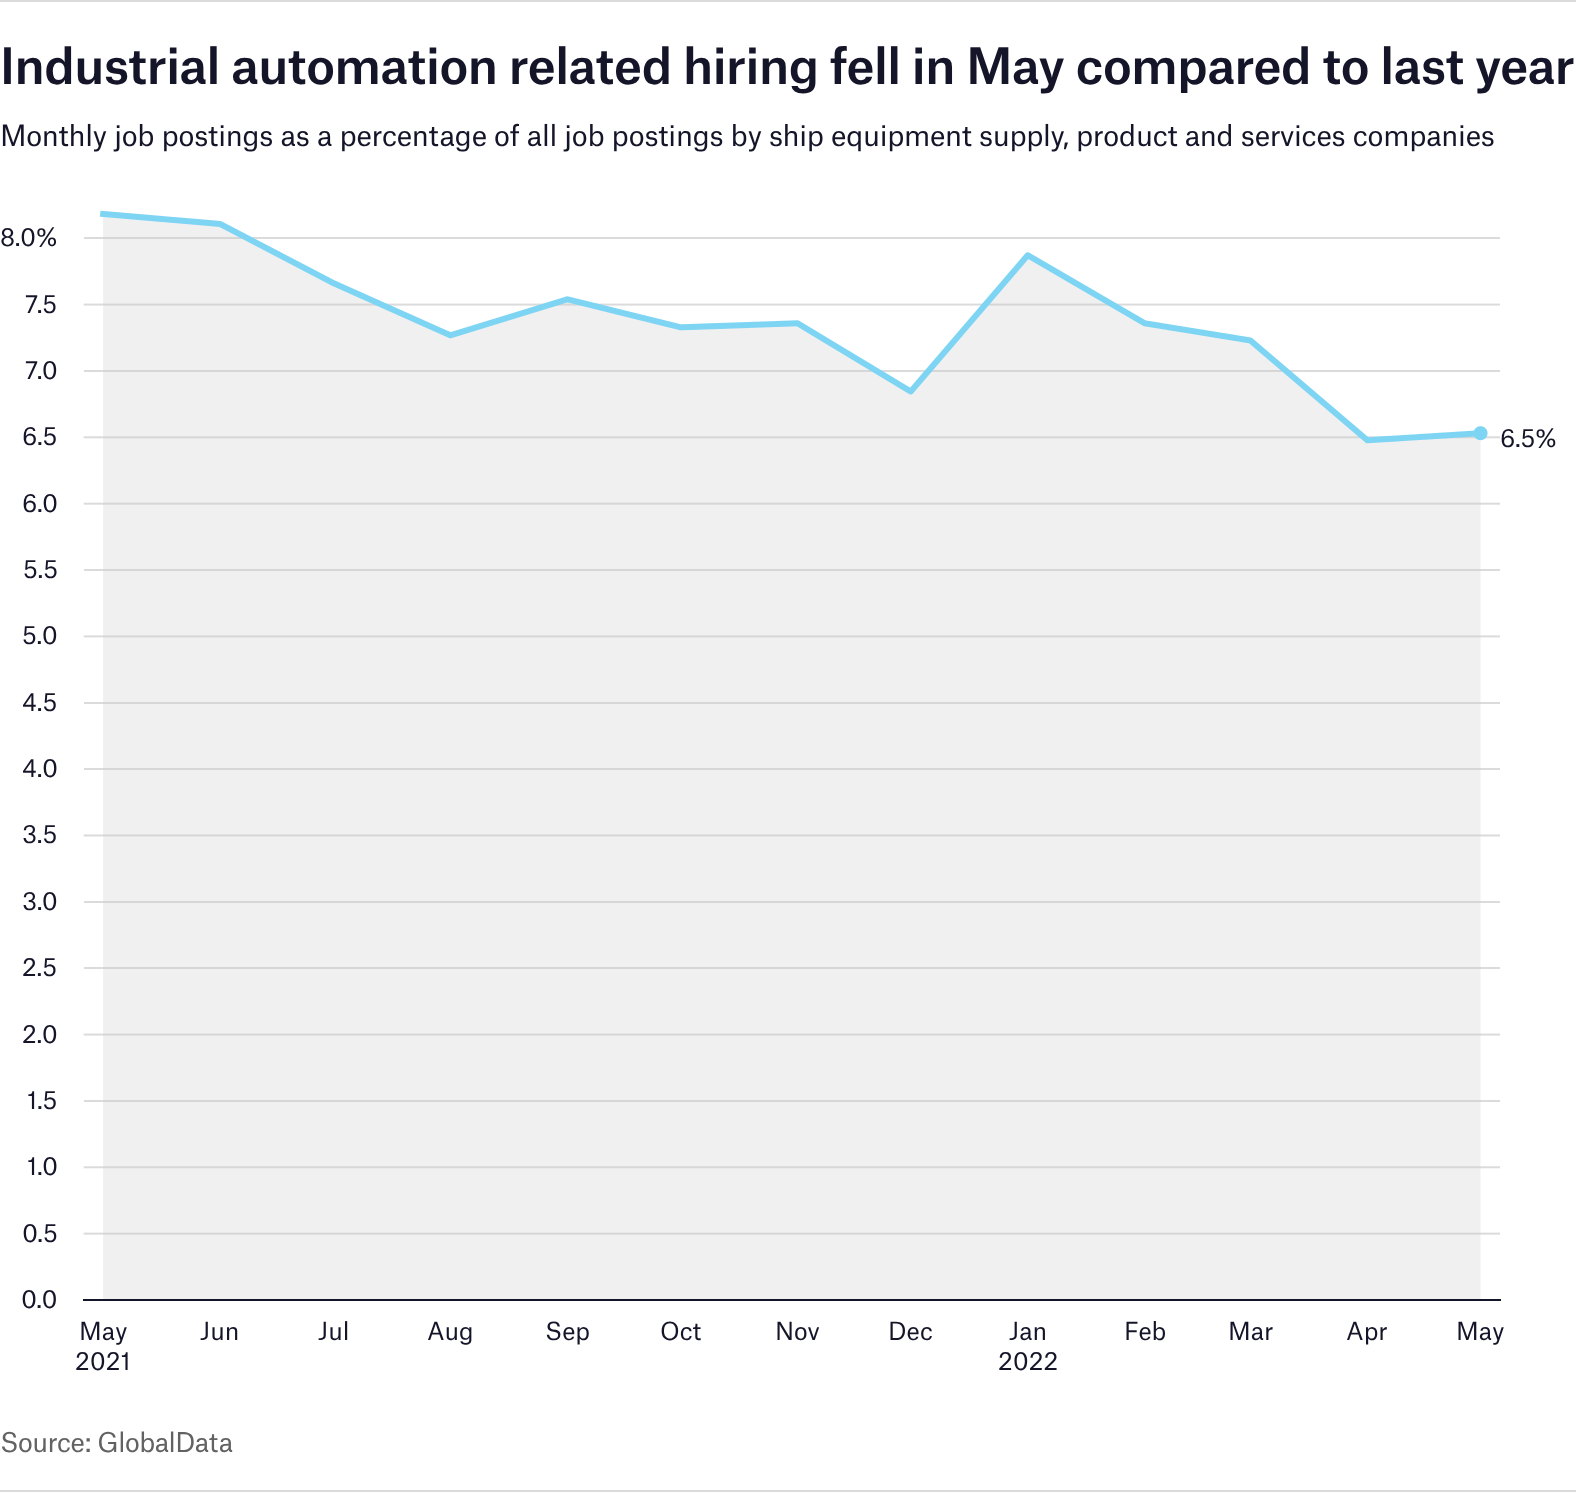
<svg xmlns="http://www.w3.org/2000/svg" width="1576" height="1492">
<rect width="100%" height="100%" fill="#fff"/>
<rect width="1576" height="2" fill="#dbdbdb"/>
<rect y="1490" width="1576" height="2" fill="#dbdbdb"/>
<text x="0" y="84" style="font-family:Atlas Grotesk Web;font-size:48px;font-weight:500;letter-spacing:-0.48px;fill:#151529">Industrial automation related hiring fell in May compared to last year</text>
<text x="0" y="146" style="font-family:Atlas Grotesk Web;font-size:28px;letter-spacing:-0.28px;fill:#151529">Monthly job postings as a percentage of all job postings by ship equipment supply, product and services companies</text>
<image x="83" y="210" width="1418" height="1091" href="media/1.png"/>
<text x="0" y="246" style="font-family:Atlas Grotesk Web;font-size:24px;fill:#151529">8.0%</text>
<text x="25" y="313" style="font-family:Atlas Grotesk Web;font-size:24px;fill:#151529">7.5</text>
<text x="25" y="379" style="font-family:Atlas Grotesk Web;font-size:24px;fill:#151529">7.0</text>
<text x="22" y="445" style="font-family:Atlas Grotesk Web;font-size:24px;fill:#151529">6.5</text>
<text x="22" y="512" style="font-family:Atlas Grotesk Web;font-size:24px;fill:#151529">6.0</text>
<text x="23" y="578" style="font-family:Atlas Grotesk Web;font-size:24px;fill:#151529">5.5</text>
<text x="22" y="644" style="font-family:Atlas Grotesk Web;font-size:24px;fill:#151529">5.0</text>
<text x="22" y="711" style="font-family:Atlas Grotesk Web;font-size:24px;fill:#151529">4.5</text>
<text x="22" y="777" style="font-family:Atlas Grotesk Web;font-size:24px;fill:#151529">4.0</text>
<text x="22" y="843" style="font-family:Atlas Grotesk Web;font-size:24px;fill:#151529">3.5</text>
<text x="22" y="910" style="font-family:Atlas Grotesk Web;font-size:24px;fill:#151529">3.0</text>
<text x="22" y="976" style="font-family:Atlas Grotesk Web;font-size:24px;fill:#151529">2.5</text>
<text x="22" y="1043" style="font-family:Atlas Grotesk Web;font-size:24px;fill:#151529">2.0</text>
<text x="27" y="1109" style="font-family:Atlas Grotesk Web;font-size:24px;fill:#151529">1.5</text>
<text x="27" y="1175" style="font-family:Atlas Grotesk Web;font-size:24px;fill:#151529">1.0</text>
<text x="22" y="1242" style="font-family:Atlas Grotesk Web;font-size:24px;fill:#151529">0.5</text>
<text x="21" y="1308" style="font-family:Atlas Grotesk Web;font-size:24px;fill:#151529">0.0</text>
<text x="79" y="1340" style="font-family:Atlas Grotesk Web;font-size:24px;fill:#151529">May</text>
<text x="200" y="1340" style="font-family:Atlas Grotesk Web;font-size:24px;fill:#151529">Jun</text>
<text x="318" y="1340" style="font-family:Atlas Grotesk Web;font-size:24px;fill:#151529">Jul</text>
<text x="427" y="1340" style="font-family:Atlas Grotesk Web;font-size:24px;fill:#151529">Aug</text>
<text x="545" y="1340" style="font-family:Atlas Grotesk Web;font-size:24px;fill:#151529">Sep</text>
<text x="660" y="1340" style="font-family:Atlas Grotesk Web;font-size:24px;fill:#151529">Oct</text>
<text x="775" y="1340" style="font-family:Atlas Grotesk Web;font-size:24px;fill:#151529">Nov</text>
<text x="888" y="1340" style="font-family:Atlas Grotesk Web;font-size:24px;fill:#151529">Dec</text>
<text x="1009" y="1340" style="font-family:Atlas Grotesk Web;font-size:24px;fill:#151529">Jan</text>
<text x="1124" y="1340" style="font-family:Atlas Grotesk Web;font-size:24px;fill:#151529">Feb</text>
<text x="1228" y="1340" style="font-family:Atlas Grotesk Web;font-size:24px;fill:#151529">Mar</text>
<text x="1346" y="1340" style="font-family:Atlas Grotesk Web;font-size:24px;fill:#151529">Apr</text>
<text x="1456" y="1340" style="font-family:Atlas Grotesk Web;font-size:24px;fill:#151529">May</text>
<text x="75" y="1370" style="font-family:Atlas Grotesk Web;font-size:24px;fill:#151529">2021</text>
<text x="998" y="1370" style="font-family:Atlas Grotesk Web;font-size:24px;fill:#151529">2022</text>
<text x="1500" y="447" style="font-family:Atlas Grotesk Web;font-size:24px;fill:#151529">6.5%</text>
<text x="0" y="1452" style="font-family:Atlas Grotesk Web;font-size:26px;letter-spacing:-0.5px;fill:#626262">Source: GlobalData</text>
</svg>
